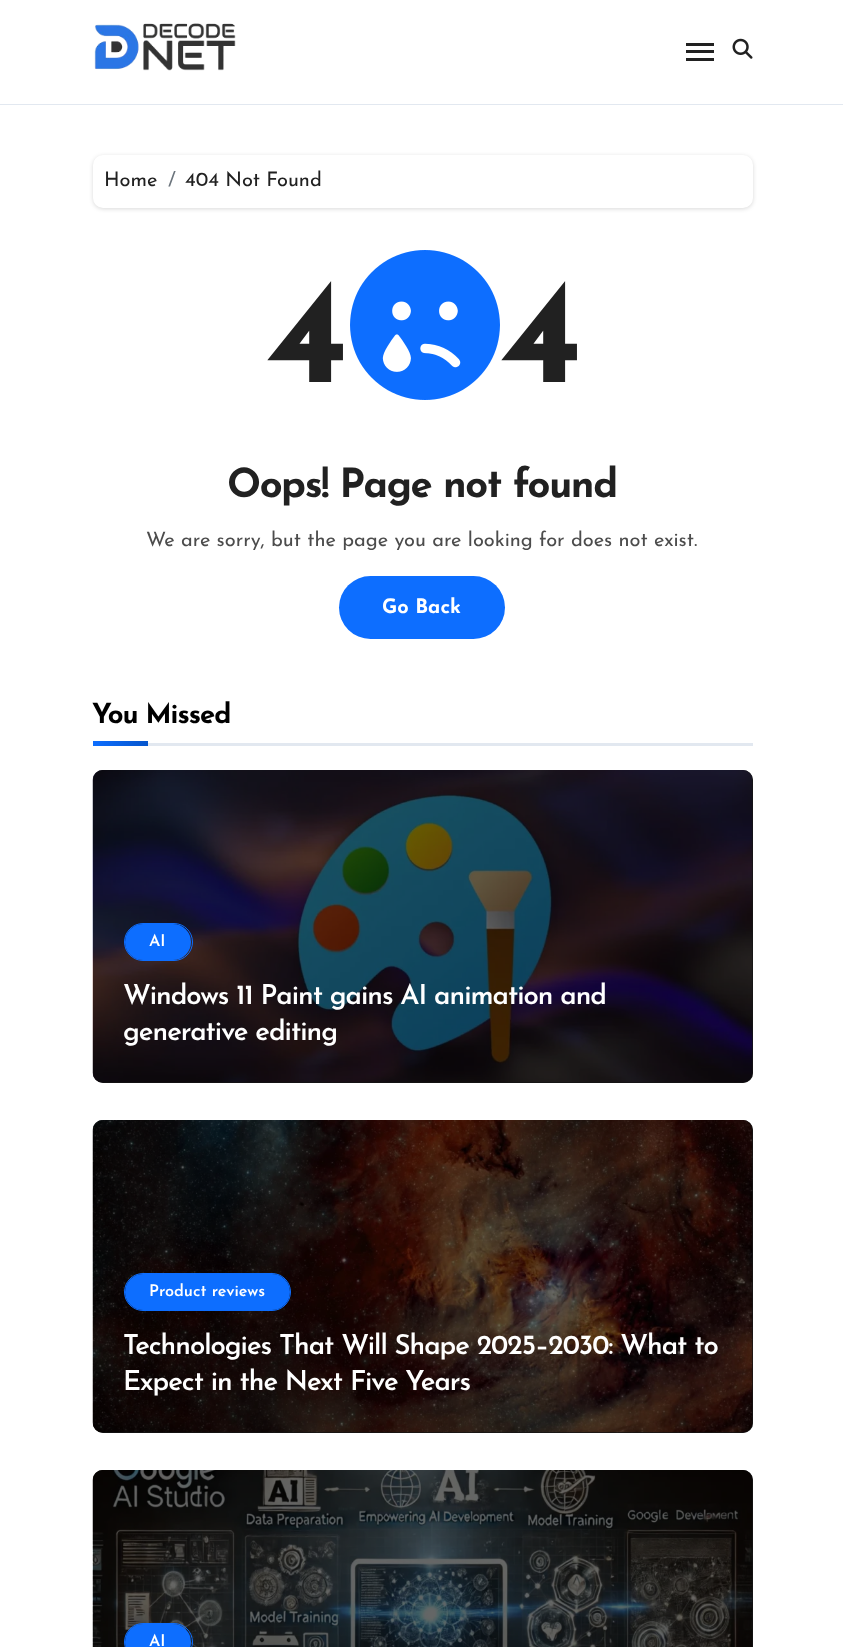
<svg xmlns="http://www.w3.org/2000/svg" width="843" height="1647">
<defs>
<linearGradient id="g1" gradientUnits="userSpaceOnUse" x1="93" y1="744" x2="148" y2="744"><stop offset="0" stop-color="#0d6eff"/><stop offset="1" stop-color="#0655cc"/></linearGradient>
</defs>
<rect width="100%" height="100%" fill="#fff"/>
<rect y="104" width="843" height="1" fill="#e2e8f0"/>
<image x="94" y="23" width="142" height="48" href="media/1.png"/>
<rect x="686" y="43" width="28" height="3" fill="#212121"/>
<rect x="686" y="50" width="28" height="3" fill="#212121"/>
<rect x="686" y="58" width="28" height="3" fill="#212121"/>
<image x="732" y="38" width="21" height="21" href="media/2.png"/>
<rect x="93" y="156" width="660" height="53" rx="10" fill="#00000026" filter="blur(2px)"/>
<rect x="93" y="155" width="660" height="53" rx="10" fill="#fff"/>
<text x="104" y="186" style="font-family:Josefin Sans;font-size:20px;fill:#212121">Home</text>
<text x="168" y="186" style="font-family:Josefin Sans;font-size:20px;fill:#6c757d">/</text>
<text x="185" y="186" style="font-family:Josefin Sans;font-size:20px;fill:#212121">404 Not Found</text>
<text x="266" y="382" style="font-family:Josefin Sans;font-size:150px;font-weight:bold;letter-spacing:-5px;fill:#212121">4</text>
<image x="350" y="250" width="150" height="150" href="media/3.png"/>
<text x="500" y="382" style="font-family:Josefin Sans;font-size:150px;font-weight:bold;letter-spacing:-5px;fill:#212121">4</text>
<text x="227" y="497" style="font-family:Josefin Sans;font-size:40px;font-weight:bold;letter-spacing:-1.4px;fill:#212121">Oops! Page not found</text>
<text x="146" y="546" style="font-family:Josefin Sans;font-size:20px;fill:#4c4c4c">We are sorry, but the page you are looking for does not exist.</text>
<rect x="339" y="576" width="166" height="63" rx="31.5" fill="#0d6eff"/>
<text x="382" y="613" style="font-family:Josefin Sans;font-size:20px;font-weight:bold;fill:#fff">Go Back</text>
<rect x="148" y="743" width="605" height="3" fill="#e2e8f0"/>
<text x="92" y="723" style="font-family:Josefin Sans;font-size:27.5px;font-weight:bold;letter-spacing:-1px;fill:#000">You Missed</text>
<rect x="93" y="741" width="55" height="5" fill="url(#g1)"/>
<rect x="93" y="770" width="660" height="313" rx="10" fill="#333"/>
<image x="92" y="770" width="661" height="313" href="media/4.png"/>
<rect x="93" y="770" width="660" height="313" rx="10" fill="#00000099"/>
<rect x="124.5" y="923.5" width="68" height="37" rx="18.5" fill="none" stroke="#0d6eff"/>
<rect x="125" y="924" width="66" height="36" rx="18" fill="#0d6eff"/>
<text x="149" y="946" style="font-family:Josefin Sans;font-size:16.25px;font-weight:600;fill:#fff">AI</text>
<text x="123" y="1004" style="font-family:Josefin Sans;font-size:27.5px;font-weight:600;letter-spacing:-1px;fill:#fff">Windows 11 Paint gains AI animation and</text>
<text x="123" y="1040" style="font-family:Josefin Sans;font-size:27.5px;font-weight:600;letter-spacing:-1px;fill:#fff">generative editing</text>
<rect x="93" y="1120" width="660" height="313" rx="10" fill="#333"/>
<image x="92" y="1120" width="661" height="313" href="media/5.png"/>
<rect x="93" y="1120" width="660" height="313" rx="10" fill="#00000099"/>
<rect x="124.5" y="1273.5" width="166" height="37" rx="18.5" fill="none" stroke="#0d6eff"/>
<rect x="125" y="1274" width="165" height="36" rx="18" fill="#0d6eff"/>
<text x="149" y="1296" style="font-family:Josefin Sans;font-size:16.25px;font-weight:600;fill:#fff">Product reviews</text>
<text x="123" y="1354" style="font-family:Josefin Sans;font-size:27.5px;font-weight:600;letter-spacing:-1px;fill:#fff">Technologies That Will Shape 2025–2030: What to</text>
<text x="123" y="1390" style="font-family:Josefin Sans;font-size:27.5px;font-weight:600;letter-spacing:-1px;fill:#fff">Expect in the Next Five Years</text>
<rect x="93" y="1470" width="660" height="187" rx="10" fill="#333"/>
<image x="92" y="1470" width="661" height="177" href="media/6.png"/>
<rect x="93" y="1470" width="660" height="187" rx="10" fill="#00000099"/>
<rect x="124.5" y="1623.5" width="68" height="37" rx="18.5" fill="none" stroke="#0d6eff"/>
<rect x="125" y="1624" width="66" height="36" rx="18" fill="#0d6eff"/>
<text x="149" y="1646" style="font-family:Josefin Sans;font-size:16.25px;font-weight:600;fill:#fff">AI</text>
</svg>
